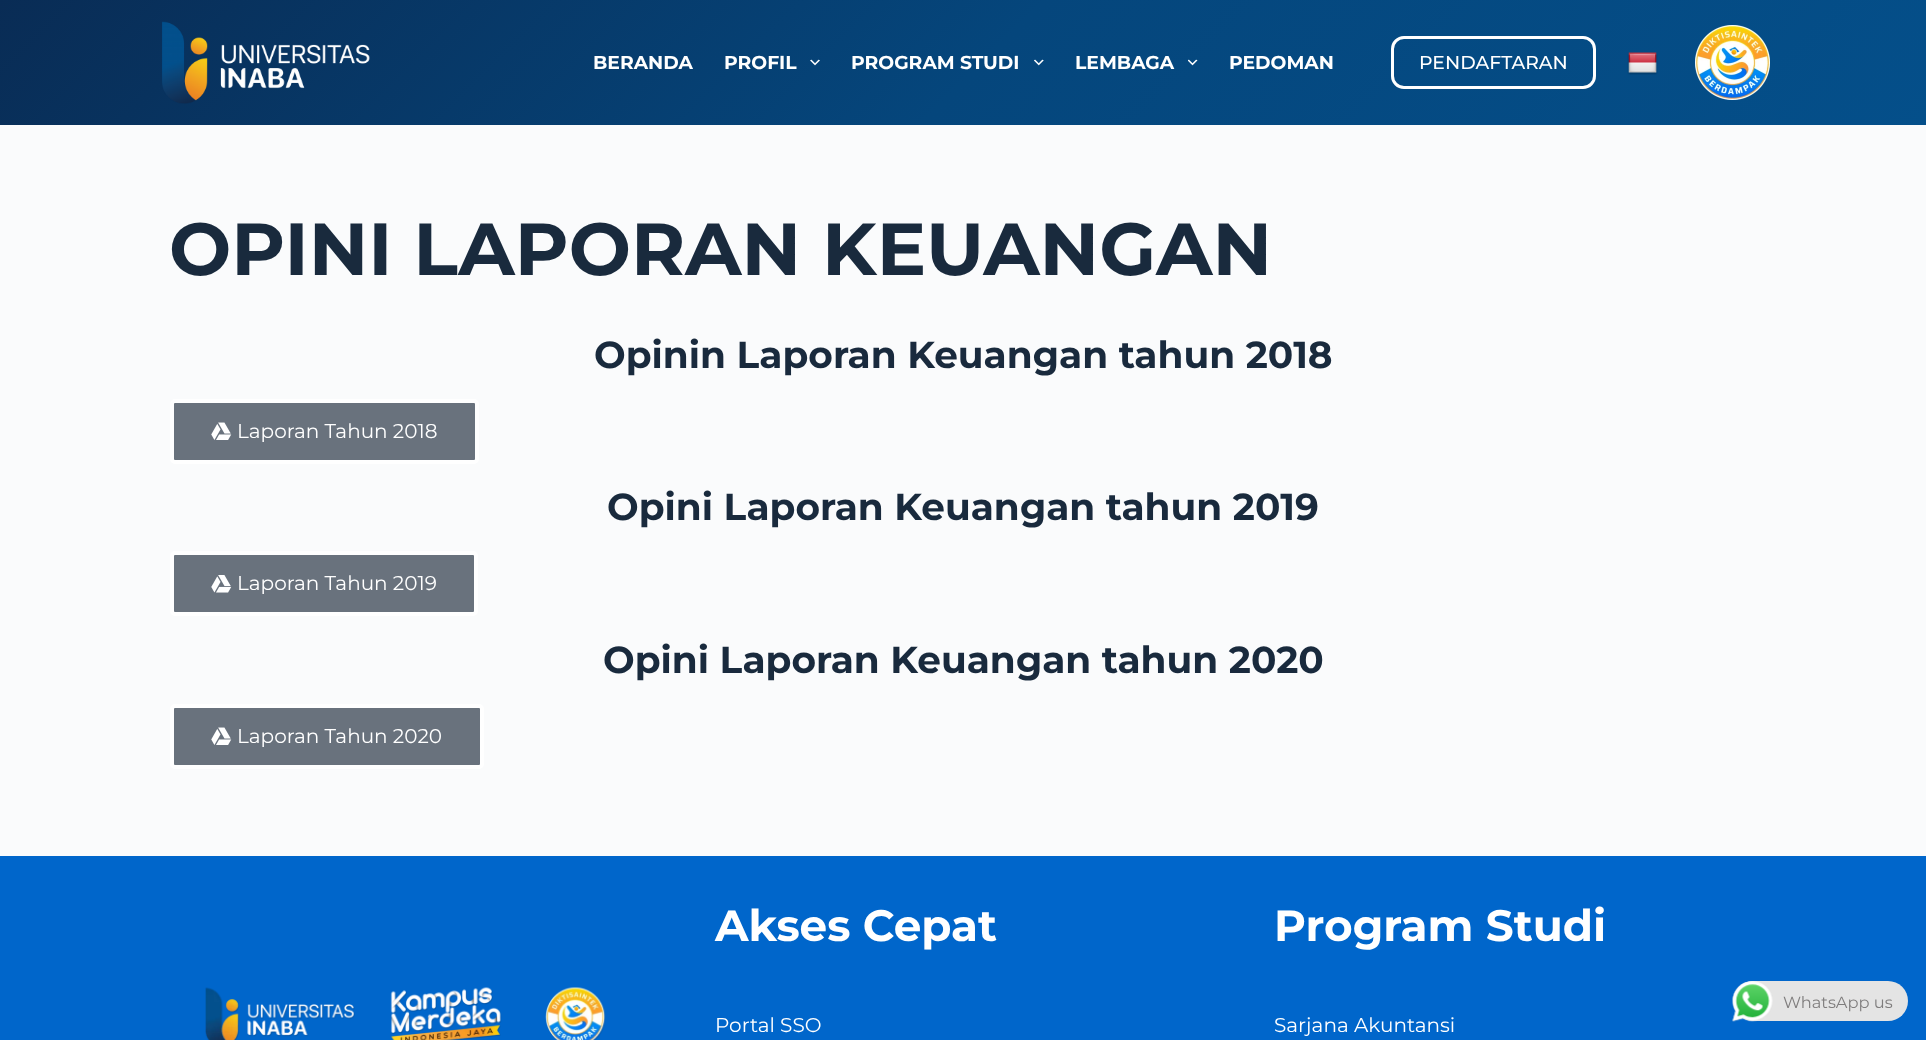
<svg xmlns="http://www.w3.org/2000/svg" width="1926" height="1040">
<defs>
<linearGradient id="g1" gradientUnits="userSpaceOnUse" x1="450" y1="-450" x2="1476" y2="575"><stop offset="0" stop-color="#092c55"/><stop offset="0.51" stop-color="#05467c"/><stop offset="1" stop-color="#044f8a"/></linearGradient>
</defs>
<rect width="100%" height="100%" fill="#fafbfc"/>
<rect width="1926" height="125" fill="url(#g1)"/>
<image x="162" y="21" width="208" height="83" href="media/1.png"/>
<text x="593" y="69" style="font-family:Montserrat;font-size:18.75px;font-weight:bold;fill:#fff">BERANDA</text>
<text x="724" y="69" style="font-family:Montserrat;font-size:18.75px;font-weight:bold;fill:#fff">PROFIL</text>
<image x="810" y="59" width="10" height="7" href="media/2.png"/>
<text x="851" y="69" style="font-family:Montserrat;font-size:18.75px;font-weight:bold;fill:#fff">PROGRAM STUDI</text>
<image x="1034" y="59" width="10" height="7" href="media/3.png"/>
<text x="1075" y="69" style="font-family:Montserrat;font-size:18.75px;font-weight:bold;fill:#fff">LEMBAGA</text>
<image x="1188" y="59" width="10" height="7" href="media/4.png"/>
<text x="1229" y="69" style="font-family:Montserrat;font-size:18.75px;font-weight:bold;fill:#fff">PEDOMAN</text>
<rect x="1392.5" y="37.5" width="202" height="50" rx="11.5" fill="none" stroke="#fff" stroke-width="3"/>
<text x="1419" y="69" style="font-family:Montserrat;font-size:18.75px;font-weight:500;fill:#fff">PENDAFTARAN</text>
<image x="1627" y="52" width="31" height="23" href="media/5.png"/>
<image x="1695" y="25" width="75" height="75" href="media/6.png"/>
<text x="169" y="275" style="font-family:Montserrat;font-size:73.75px;font-weight:bold;fill:#192a3d">OPINI LAPORAN KEUANGAN</text>
<text x="594" y="368" style="font-family:Montserrat;font-size:37.5px;font-weight:bold;fill:#192a3d">Opinin Laporan Keuangan tahun 2018</text>
<rect x="172" y="401" width="305" height="61" rx="3" fill="#69727d" stroke="#fff" stroke-width="4"/>
<image x="211" y="422" width="21" height="18" href="media/7.png"/>
<text x="237" y="438" style="font-family:Montserrat;font-size:20px;fill:#fff">Laporan Tahun 2018</text>
<text x="607" y="520" style="font-family:Montserrat;font-size:37.5px;font-weight:bold;fill:#192a3d">Opini Laporan Keuangan tahun 2019</text>
<rect x="172" y="553" width="304" height="61" rx="3" fill="#69727d" stroke="#fff" stroke-width="4"/>
<image x="211" y="575" width="21" height="18" href="media/8.png"/>
<text x="237" y="590" style="font-family:Montserrat;font-size:20px;fill:#fff">Laporan Tahun 2019</text>
<text x="603" y="673" style="font-family:Montserrat;font-size:37.5px;font-weight:bold;fill:#192a3d">Opini Laporan Keuangan tahun 2020</text>
<rect x="172" y="706" width="310" height="61" rx="3" fill="#69727d" stroke="#fff" stroke-width="4"/>
<image x="211" y="727" width="21" height="18" href="media/7.png"/>
<text x="237" y="743" style="font-family:Montserrat;font-size:20px;fill:#fff">Laporan Tahun 2020</text>
<rect y="856" width="1926" height="184" fill="#0066cb"/>
<image x="205" y="987" width="401" height="53" href="media/9.png"/>
<text x="715" y="941" style="font-family:Montserrat;font-size:43.75px;font-weight:bold;fill:#fff">Akses Cepat</text>
<text x="715" y="1032" style="font-family:Montserrat;font-size:20px;fill:#fff">Portal SSO</text>
<text x="1274" y="941" style="font-family:Montserrat;font-size:43.75px;font-weight:bold;fill:#fff">Program Studi</text>
<text x="1274" y="1032" style="font-family:Montserrat;font-size:20px;fill:#fff">Sarjana Akuntansi</text>
<rect x="1733" y="981" width="175" height="40" rx="20" fill="#e4e4e4"/>
<image x="1732" y="981" width="41" height="41" href="media/10.png"/>
<text x="1783" y="1008" style="font-family:Montserrat;font-size:16.25px;fill:#7f7d7d">WhatsApp us</text>
</svg>
